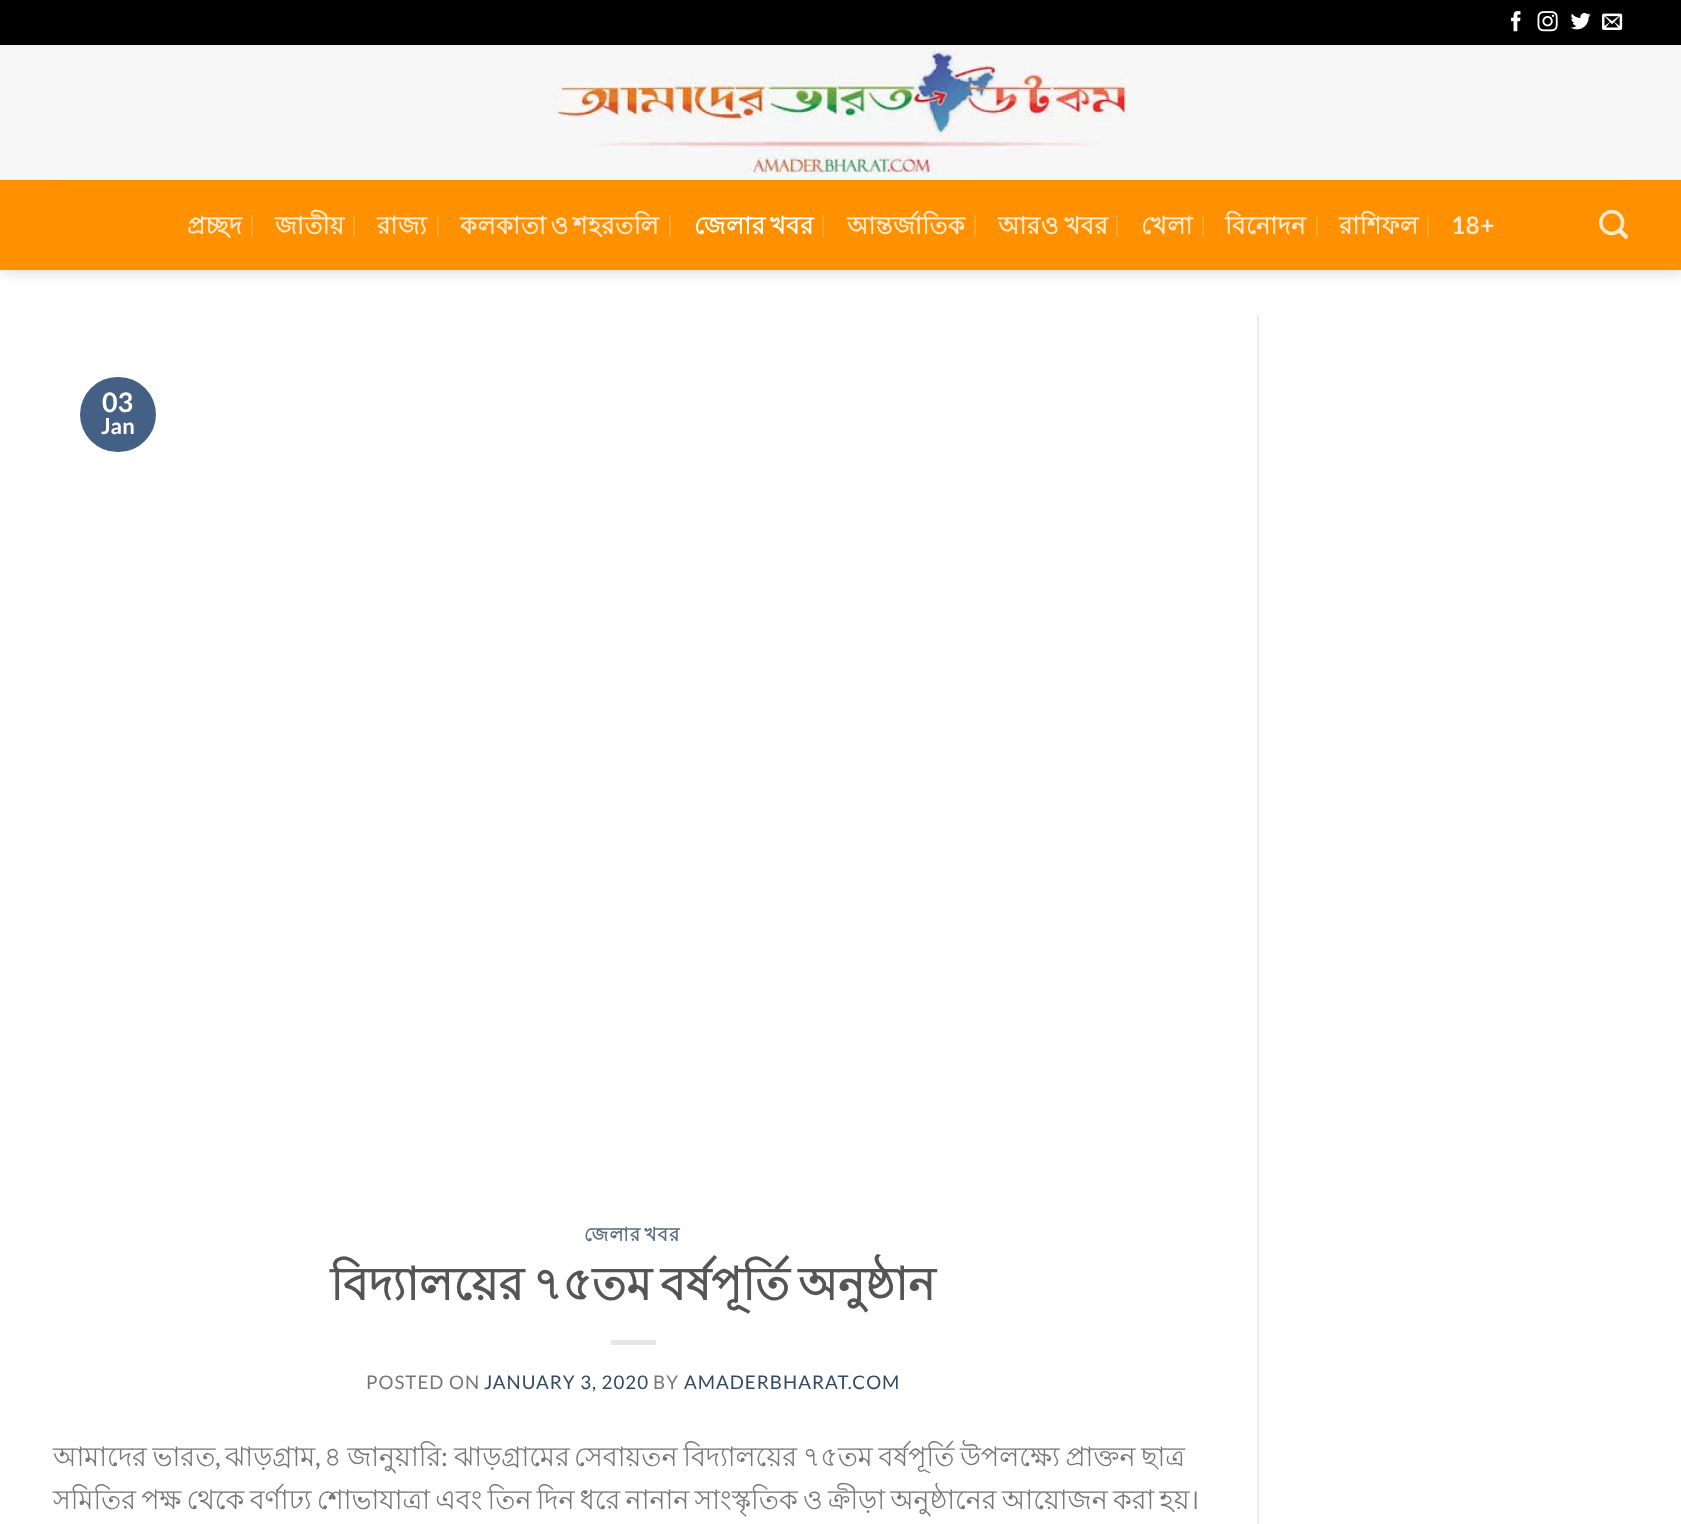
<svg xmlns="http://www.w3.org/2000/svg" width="1681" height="1524">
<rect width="100%" height="100%" fill="#fff"/>
<rect x="2" y="2" width="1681" height="270" fill="#00000026" filter="blur(7.5px)"/>
<rect y="45" width="1681" height="135" fill="#f7f7f7"/>
<rect width="1681" height="45" fill="#000"/>
<image x="1511" y="11" width="10" height="21" href="media/1.png"/>
<image x="1537" y="11" width="21" height="21" href="media/2.png"/>
<image x="1570" y="13" width="21" height="17" href="media/3.png"/>
<image x="1602" y="13" width="21" height="17" href="media/4.png"/>
<image x="553" y="49" width="575" height="126" href="media/5.png"/>
<rect y="180" width="1681" height="90" fill="#ff9000"/>
<rect x="54" y="180" width="1575" height="2" fill="#f18d0c"/>
<text x="187" y="234" style="font-family:Lohit Bengali;font-size:24.25px;font-weight:bold;letter-spacing:0.5px;fill:#ffe9cc">প্রচ্ছদ</text>
<rect x="251" y="215" width="2" height="22" fill="#ffa633"/>
<text x="275" y="234" style="font-family:Lohit Bengali;font-size:24.25px;font-weight:bold;letter-spacing:0.5px;fill:#ffe9cc">জাতীয়</text>
<rect x="353" y="215" width="2" height="22" fill="#ffa633"/>
<text x="377" y="234" style="font-family:Lohit Bengali;font-size:24.25px;font-weight:bold;letter-spacing:0.5px;fill:#ffe9cc">রাজ্য</text>
<rect x="437" y="215" width="2" height="22" fill="#ffa633"/>
<text x="460" y="234" word-spacing="-3" style="font-family:Lohit Bengali;font-size:24.25px;font-weight:bold;letter-spacing:0.5px;fill:#ffe9cc">কলকাতা ও শহরতলি</text>
<rect x="669" y="215" width="2" height="22" fill="#ffa633"/>
<text x="694" y="234" word-spacing="-3" style="font-family:Lohit Bengali;font-size:24.25px;font-weight:bold;letter-spacing:0.5px;fill:#fff">জেলার খবর</text>
<rect x="822" y="215" width="2" height="22" fill="#ffa633"/>
<text x="847" y="234" style="font-family:Lohit Bengali;font-size:24.25px;font-weight:bold;letter-spacing:0.5px;fill:#ffe9cc">আন্তর্জাতিক</text>
<rect x="974" y="215" width="2" height="22" fill="#ffa633"/>
<text x="998" y="234" word-spacing="-2" style="font-family:Lohit Bengali;font-size:24.25px;font-weight:bold;letter-spacing:0.5px;fill:#ffe9cc">আরও খবর</text>
<rect x="1116" y="215" width="2" height="22" fill="#ffa633"/>
<text x="1141" y="234" style="font-family:Lohit Bengali;font-size:24.25px;font-weight:bold;letter-spacing:0.5px;fill:#ffe9cc">খেলা</text>
<rect x="1202" y="215" width="2" height="22" fill="#ffa633"/>
<text x="1225" y="234" style="font-family:Lohit Bengali;font-size:24.25px;font-weight:bold;letter-spacing:0.5px;fill:#ffe9cc">বিনোদন</text>
<rect x="1316" y="215" width="2" height="22" fill="#ffa633"/>
<text x="1339" y="234" style="font-family:Lohit Bengali;font-size:24.25px;font-weight:bold;letter-spacing:0.5px;fill:#ffe9cc">রাশিফল</text>
<rect x="1427" y="215" width="2" height="22" fill="#ffa633"/>
<text x="1451" y="234" style="font-family:Lato;font-size:24.25px;font-weight:bold;letter-spacing:0.5px;fill:#ffe9cc">18+</text>
<image x="1599" y="209" width="29" height="30" href="media/6.png"/>
<rect x="80" y="377" width="76" height="75" rx="37.5" fill="#446084"/>
<text x="102" y="412" style="font-family:Lato;font-size:26.9px;font-weight:bold;fill:#fff">03</text>
<text x="101" y="434" style="font-family:Lato;font-size:22px;font-weight:bold;fill:#fff">Jan</text>
<text x="584" y="1241" word-spacing="-3" style="font-family:Lohit Bengali;font-size:18.75px;font-weight:bold;letter-spacing:1px;fill:#5c6d81">জেলার খবর</text>
<text x="330" y="1300" word-spacing="-4" style="font-family:Lohit Bengali;font-size:45.75px;font-weight:bold;fill:#555">বিদ্যালয়ের ৭৫তম বর্ষপূর্তি অনুষ্ঠান</text>
<rect x="611" y="1340" width="45" height="5" fill="#e6e6e6"/>
<text x="366" y="1389" style="font-family:Lato;font-size:18.75px;letter-spacing:1px;fill:#777">POSTED ON</text>
<text x="484" y="1389" style="font-family:Lato;font-size:18.75px;letter-spacing:1px;fill:#334862">JANUARY 3, 2020</text>
<text x="653" y="1389" style="font-family:Lato;font-size:18.75px;letter-spacing:1px;fill:#777">BY</text>
<text x="684" y="1389" style="font-family:Lato;font-size:18.75px;letter-spacing:1px;fill:#334862">AMADERBHARAT.COM</text>
<text x="53" y="1466" word-spacing="-1.75" style="font-family:Lohit Bengali;font-size:26.9px;fill:#777">আমাদের ভারত</text>
<text x="215" y="1466" style="font-family:Lato;font-size:26.9px;fill:#777">,</text>
<text x="225" y="1466" style="font-family:Lohit Bengali;font-size:26.9px;fill:#777">ঝাড়গ্রাম</text>
<text x="315" y="1466" style="font-family:Lato;font-size:26.9px;fill:#777">,</text>
<text x="324" y="1466" word-spacing="-1.75" style="font-family:Lohit Bengali;font-size:26.9px;fill:#777">৪ জানুয়ারি</text>
<text x="441" y="1466" style="font-family:Lato;font-size:26.9px;fill:#777">:</text>
<text x="454" y="1466" style="font-family:Lohit Bengali;font-size:26.9px;fill:#777">ঝাড়গ্রামের</text>
<text x="574" y="1466" word-spacing="-1.75" style="font-family:Lohit Bengali;font-size:26.9px;fill:#777">সেবায়তন বিদ্যালয়ের ৭৫তম বর্ষপূর্তি উপলক্ষ্যে প্রাক্তন ছাত্র</text>
<text x="53" y="1509" word-spacing="-2.25" style="font-family:Lohit Bengali;font-size:26.9px;fill:#777">সমিতির পক্ষ থেকে বর্ণাঢ্য শোভাযাত্রা এবং তিন দিন ধরে নানান সাংস্কৃতিক ও ক্রীড়া অনুষ্ঠানের আয়োজন করা হয়।</text>
<rect x="1257" y="315" width="2" height="1209" fill="#ececec"/>
</svg>
